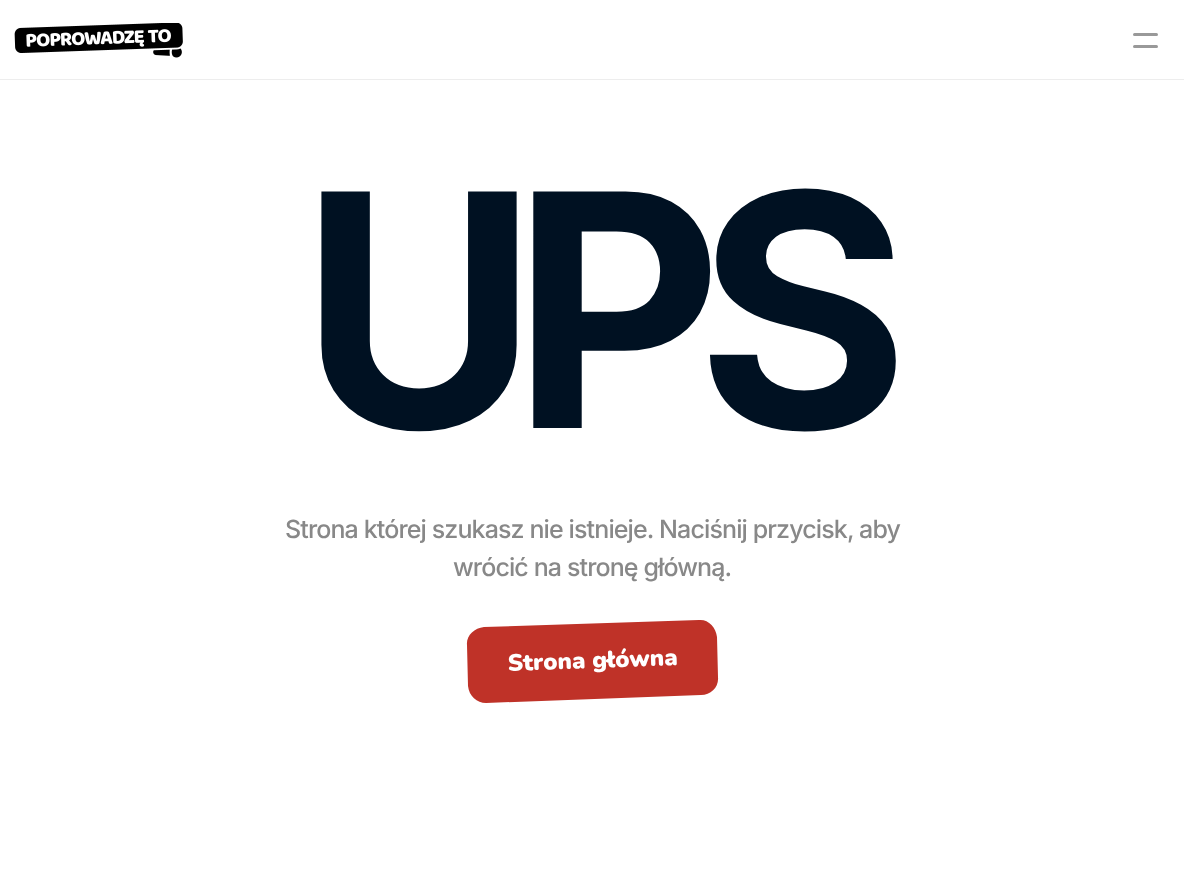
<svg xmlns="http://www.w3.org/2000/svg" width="1184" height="871">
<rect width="100%" height="100%" fill="#fff"/>
<image x="14" y="23" width="169" height="35" href="media/1.png"/>
<rect x="1133" y="33" width="25" height="3" rx="1.5" fill="#999"/>
<rect x="1133" y="45" width="25" height="3" rx="1.5" fill="#999"/>
<rect y="79" width="1184" height="1" fill="#ededed"/>
<text x="300" y="428" style="font-family:Inter;font-size:325px;font-weight:bold;letter-spacing:-26px;fill:#012">UPS</text>
<text x="285" y="538" style="font-family:Inter;font-size:25px;font-weight:500;letter-spacing:-0.88px;fill:#888">Strona której szukasz nie istnieje. Naciśnij przycisk, aby</text>
<text x="453" y="576" style="font-family:Inter;font-size:25px;font-weight:500;letter-spacing:-0.88px;fill:#888">wrócić na stronę główną.</text>
<path d="M484 627l215-7c9-1 17 7 18 17l1 40c1 10-7 18-17 18l-215 8c-9 0-17-7-18-17l-1-41c-1-9 7-17 17-18z" fill="#bf3228"/>
<text x="508" y="671" transform="rotate(-2 508 671)" style="font-family:Nunito;font-size:23.75px;font-weight:200;fill:#fff">Strona główna</text>
</svg>
